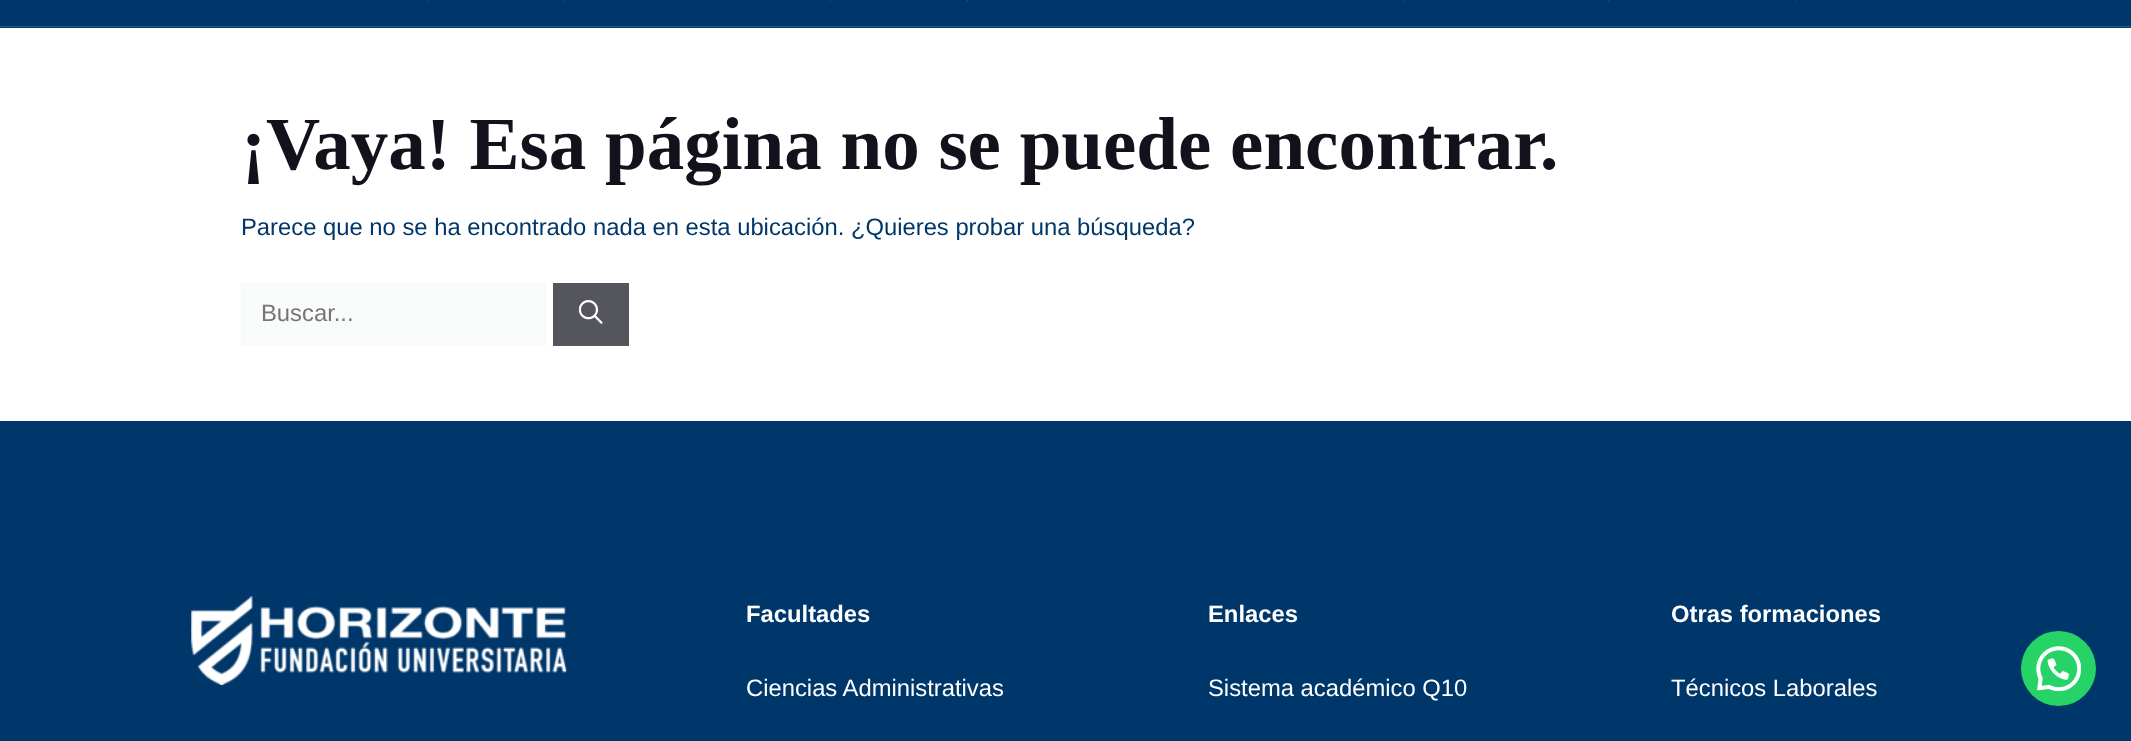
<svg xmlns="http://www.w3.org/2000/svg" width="2131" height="741">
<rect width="100%" height="100%" fill="#fff"/>
<rect width="2131" height="28" fill="#00376b"/>
<rect y="26" width="2131" height="1" fill="#2c5889"/>
<rect x="428" width="1" height="1" fill="#265581"/>
<rect x="563" width="1" height="1" fill="#265581"/>
<rect x="829" width="2" height="1" fill="#144777"/>
<rect x="967" width="1" height="1" fill="#295783"/>
<rect x="1403" width="1" height="1" fill="#265581"/>
<rect x="1608" width="1" height="1" fill="#265581"/>
<image x="1796" y="0" width="1" height="1" href="media/1.png"/>
<text x="241" y="169" style="font-family:Liberation Serif;font-size:75px;font-weight:bold;fill:#11121b">¡Vaya! Esa página no se puede encontrar.</text>
<text x="241" y="235" style="font-family:Liberation Sans;font-size:23.8px;fill:#00376b">Parece que no se ha encontrado nada en esta ubicación. ¿Quieres probar una búsqueda?</text>
<rect x="241.5" y="283.5" width="304" height="62" fill="#f9fafa" stroke="#f7f8f9"/>
<text x="261" y="321" style="font-family:Liberation Sans;font-size:23.8px;fill:#757575">Buscar...</text>
<rect x="553" y="283" width="76" height="63" fill="#55555e"/>
<image x="579" y="300" width="24" height="24" href="media/2.png"/>
<rect y="421" width="2131" height="320" fill="#00376b"/>
<image x="191" y="596" width="376" height="89" href="media/3.png"/>
<text x="746" y="622" style="font-family:Liberation Sans;font-size:23.8px;font-weight:bold;fill:#fff">Facultades</text>
<text x="746" y="696" style="font-family:Liberation Sans;font-size:23.8px;fill:#fff">Ciencias Administrativas</text>
<text x="1208" y="622" style="font-family:Liberation Sans;font-size:23.8px;font-weight:bold;fill:#fff">Enlaces</text>
<text x="1208" y="696" style="font-family:Liberation Sans;font-size:23.8px;fill:#fff">Sistema académico Q10</text>
<text x="1671" y="622" style="font-family:Liberation Sans;font-size:23.75px;font-weight:bold;fill:#fff">Otras formaciones</text>
<text x="1671" y="696" style="font-family:Liberation Sans;font-size:23.8px;fill:#fff">Técnicos Laborales</text>
<circle cx="2058.5" cy="668.5" r="37.5" fill="#25d366"/>
<image x="2036" y="646" width="45" height="45" href="media/4.png"/>
</svg>
